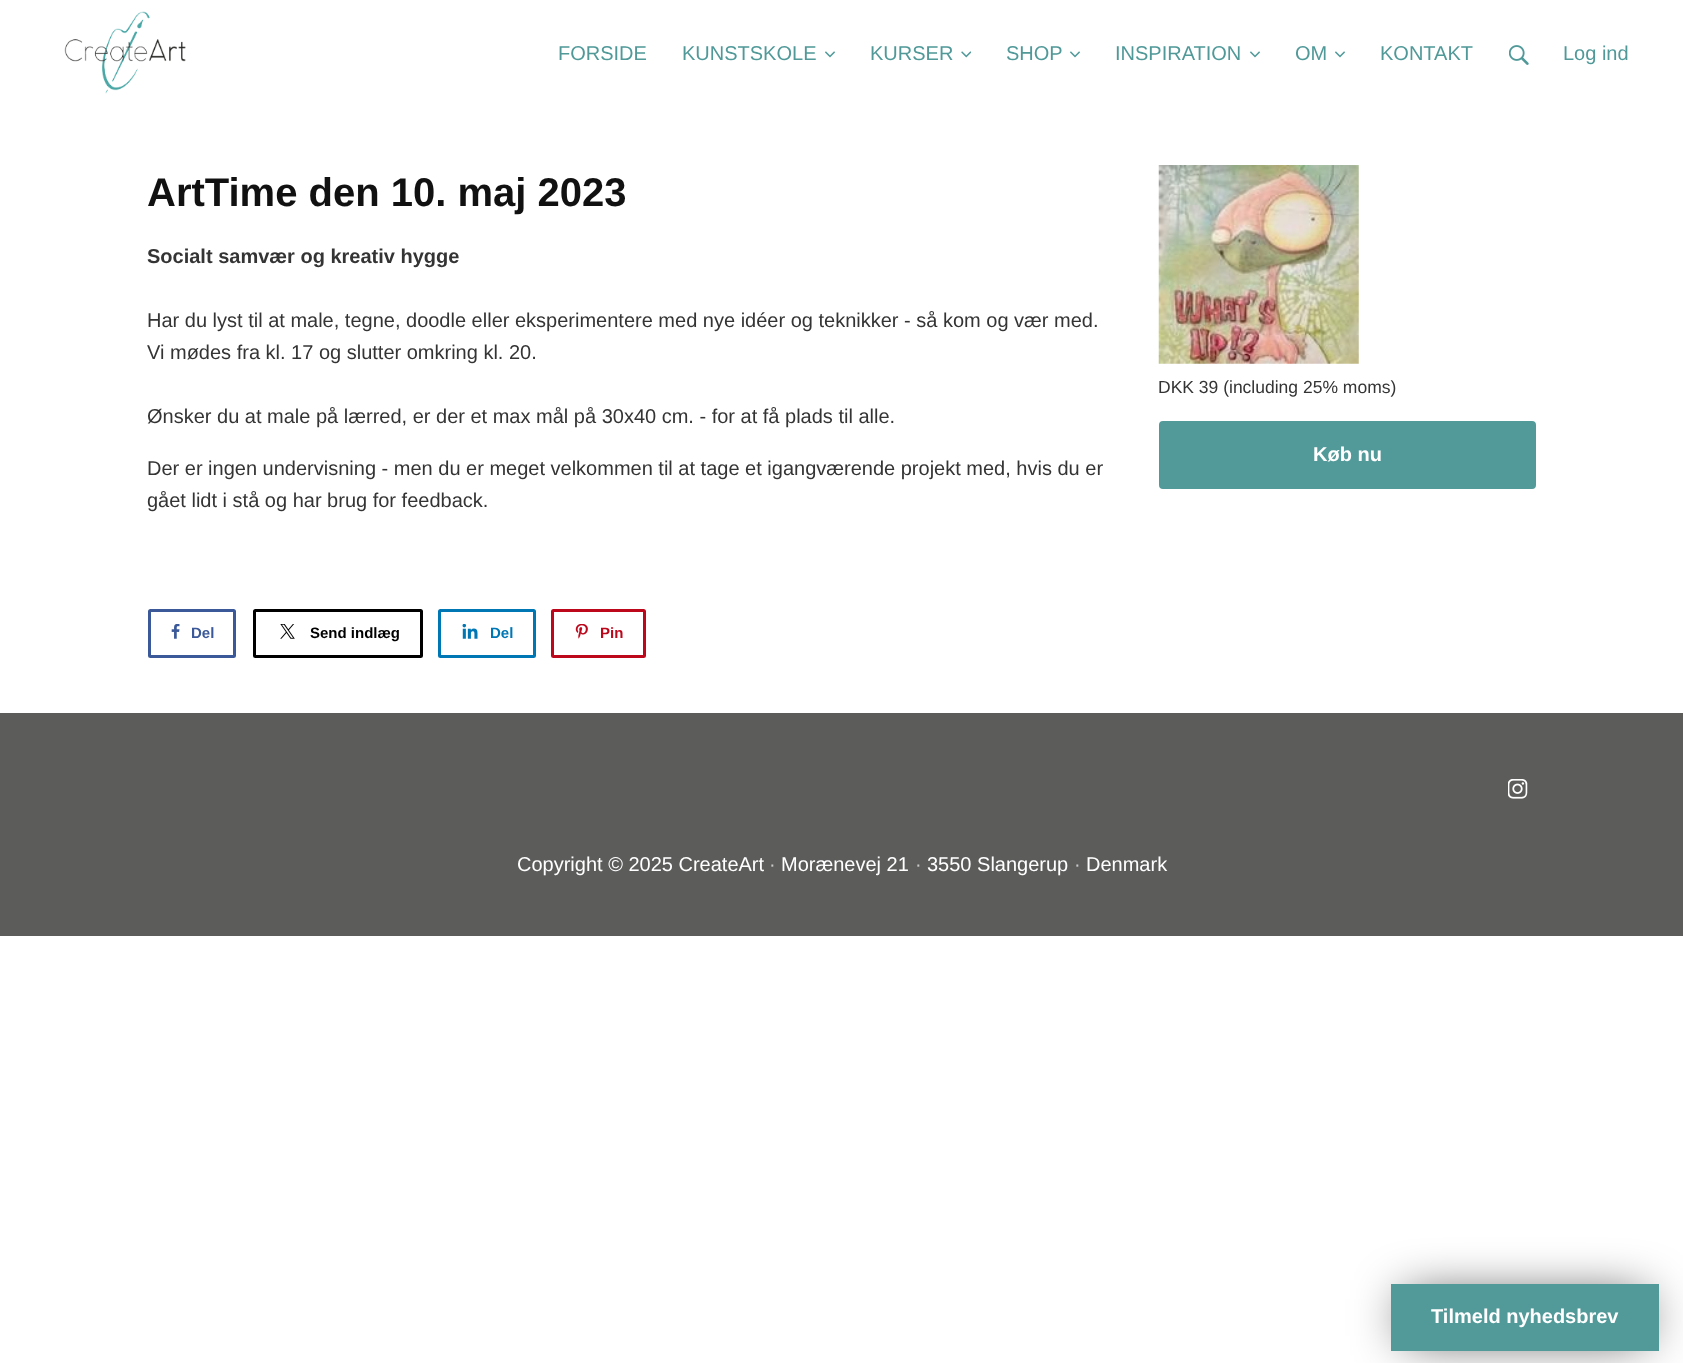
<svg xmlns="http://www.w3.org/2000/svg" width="1683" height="1363">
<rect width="100%" height="100%" fill="#fff"/>
<image x="64" y="11" width="122" height="83" href="media/1.png"/>
<text x="558" y="60" style="font-family:Liberation Sans;font-size:20px;fill:#519999">FORSIDE</text>
<text x="682" y="60" style="font-family:Liberation Sans;font-size:20px;fill:#519999">KUNSTSKOLE</text>
<image x="825" y="51" width="10" height="7" href="media/2.png"/>
<text x="870" y="60" style="font-family:Liberation Sans;font-size:20px;fill:#519999">KURSER</text>
<image x="961" y="51" width="10" height="7" href="media/3.png"/>
<text x="1006" y="60" style="font-family:Liberation Sans;font-size:20px;fill:#519999">SHOP</text>
<image x="1070" y="51" width="10" height="7" href="media/2.png"/>
<text x="1115" y="60" style="font-family:Liberation Sans;font-size:20px;fill:#519999">INSPIRATION</text>
<image x="1250" y="51" width="10" height="7" href="media/2.png"/>
<text x="1295" y="60" style="font-family:Liberation Sans;font-size:20px;fill:#519999">OM</text>
<image x="1335" y="51" width="10" height="7" href="media/2.png"/>
<text x="1380" y="60" style="font-family:Liberation Sans;font-size:20px;fill:#519999">KONTAKT</text>
<image x="1509" y="45" width="20" height="20" href="media/4.png"/>
<text x="1563" y="60" style="font-family:Liberation Sans;font-size:20px;fill:#519999">Log ind</text>
<text x="147" y="206" style="font-family:Liberation Sans;font-size:40px;font-weight:bold;fill:#111">ArtTime den 10. maj 2023</text>
<text x="147" y="263" style="font-family:Liberation Sans;font-size:20px;font-weight:bold;fill:#343434">Socialt samvær og kreativ hygge</text>
<text x="147" y="327" style="font-family:Liberation Sans;font-size:20px;fill:#343434">Har du lyst til at male, tegne, doodle eller eksperimentere med nye idéer og teknikker - så kom og vær med.</text>
<text x="147" y="359" style="font-family:Liberation Sans;font-size:20px;fill:#343434">Vi mødes fra kl. 17 og slutter omkring kl. 20.</text>
<text x="147" y="423" style="font-family:Liberation Sans;font-size:20px;fill:#343434">Ønsker du at male på lærred, er der et max mål på 30x40 cm. - for at få plads til alle.</text>
<text x="147" y="475" style="font-family:Liberation Sans;font-size:20px;fill:#343434">Der er ingen undervisning - men du er meget velkommen til at tage et igangværende projekt med, hvis du er</text>
<text x="147" y="507" style="font-family:Liberation Sans;font-size:20px;fill:#343434">gået lidt i stå og har brug for feedback.</text>
<rect x="149.5" y="610.5" width="85" height="46" rx="1" fill="none" stroke="#3b5998" stroke-width="3"/>
<image x="171" y="624" width="9" height="15" href="media/5.png"/>
<text x="191" y="638" style="font-family:Liberation Sans;font-size:15px;font-weight:bold;fill:#3b5998">Del</text>
<rect x="254.5" y="610.5" width="167" height="46" rx="1" fill="none" stroke="#000" stroke-width="3"/>
<image x="280" y="624" width="15" height="15" href="media/6.png"/>
<text x="310" y="638" style="font-family:Liberation Sans;font-size:15px;font-weight:bold;fill:#000">Send indlæg</text>
<rect x="439.5" y="610.5" width="95" height="46" rx="1" fill="none" stroke="#0077b5" stroke-width="3"/>
<image x="462" y="624" width="16" height="15" href="media/7.png"/>
<text x="490" y="638" style="font-family:Liberation Sans;font-size:15px;font-weight:bold;fill:#0077b5">Del</text>
<rect x="552.5" y="610.5" width="92" height="46" rx="1" fill="none" stroke="#bd081c" stroke-width="3"/>
<image x="575" y="624" width="13" height="15" href="media/8.png"/>
<text x="600" y="638" style="font-family:Liberation Sans;font-size:15px;font-weight:bold;fill:#bd081c">Pin</text>
<image x="1158" y="165" width="201" height="199" href="media/9.png"/>
<text x="1158" y="393" style="font-family:Liberation Sans;font-size:17.5px;fill:#343434">DKK 39 (including 25% moms)</text>
<rect x="1160.5" y="422.5" width="374" height="65" rx="2.5" fill="#529999" stroke="#529999" stroke-width="3"/>
<text x="1313" y="461" style="font-family:Liberation Sans;font-size:20px;font-weight:bold;fill:#fff">Køb nu</text>
<rect y="713" width="1683" height="223" fill="#5c5c5b"/>
<image x="1508" y="779" width="20" height="20" href="media/10.png"/>
<text x="517" y="871" style="font-family:Liberation Sans;font-size:20px;fill:#fff">Copyright © 2025 CreateArt</text>
<text x="769" y="871" style="font-family:Liberation Sans;font-size:20px;fill:#c9c9c9">·</text>
<text x="781" y="871" style="font-family:Liberation Sans;font-size:20px;fill:#fff">Morænevej 21</text>
<text x="915" y="871" style="font-family:Liberation Sans;font-size:20px;fill:#c9c9c9">·</text>
<text x="927" y="871" style="font-family:Liberation Sans;font-size:20px;fill:#fff">3550 Slangerup</text>
<text x="1074" y="871" style="font-family:Liberation Sans;font-size:20px;fill:#c9c9c9">·</text>
<text x="1086" y="871" style="font-family:Liberation Sans;font-size:20px;fill:#fff">Denmark</text>
<rect x="1404" y="1296" width="242" height="43" fill="#000000bf" filter="blur(25px)"/>
<rect x="1391" y="1284" width="268" height="67" fill="#529999"/>
<text x="1431" y="1323" style="font-family:Liberation Sans;font-size:20px;font-weight:bold;fill:#fff">Tilmeld nyhedsbrev</text>
</svg>
